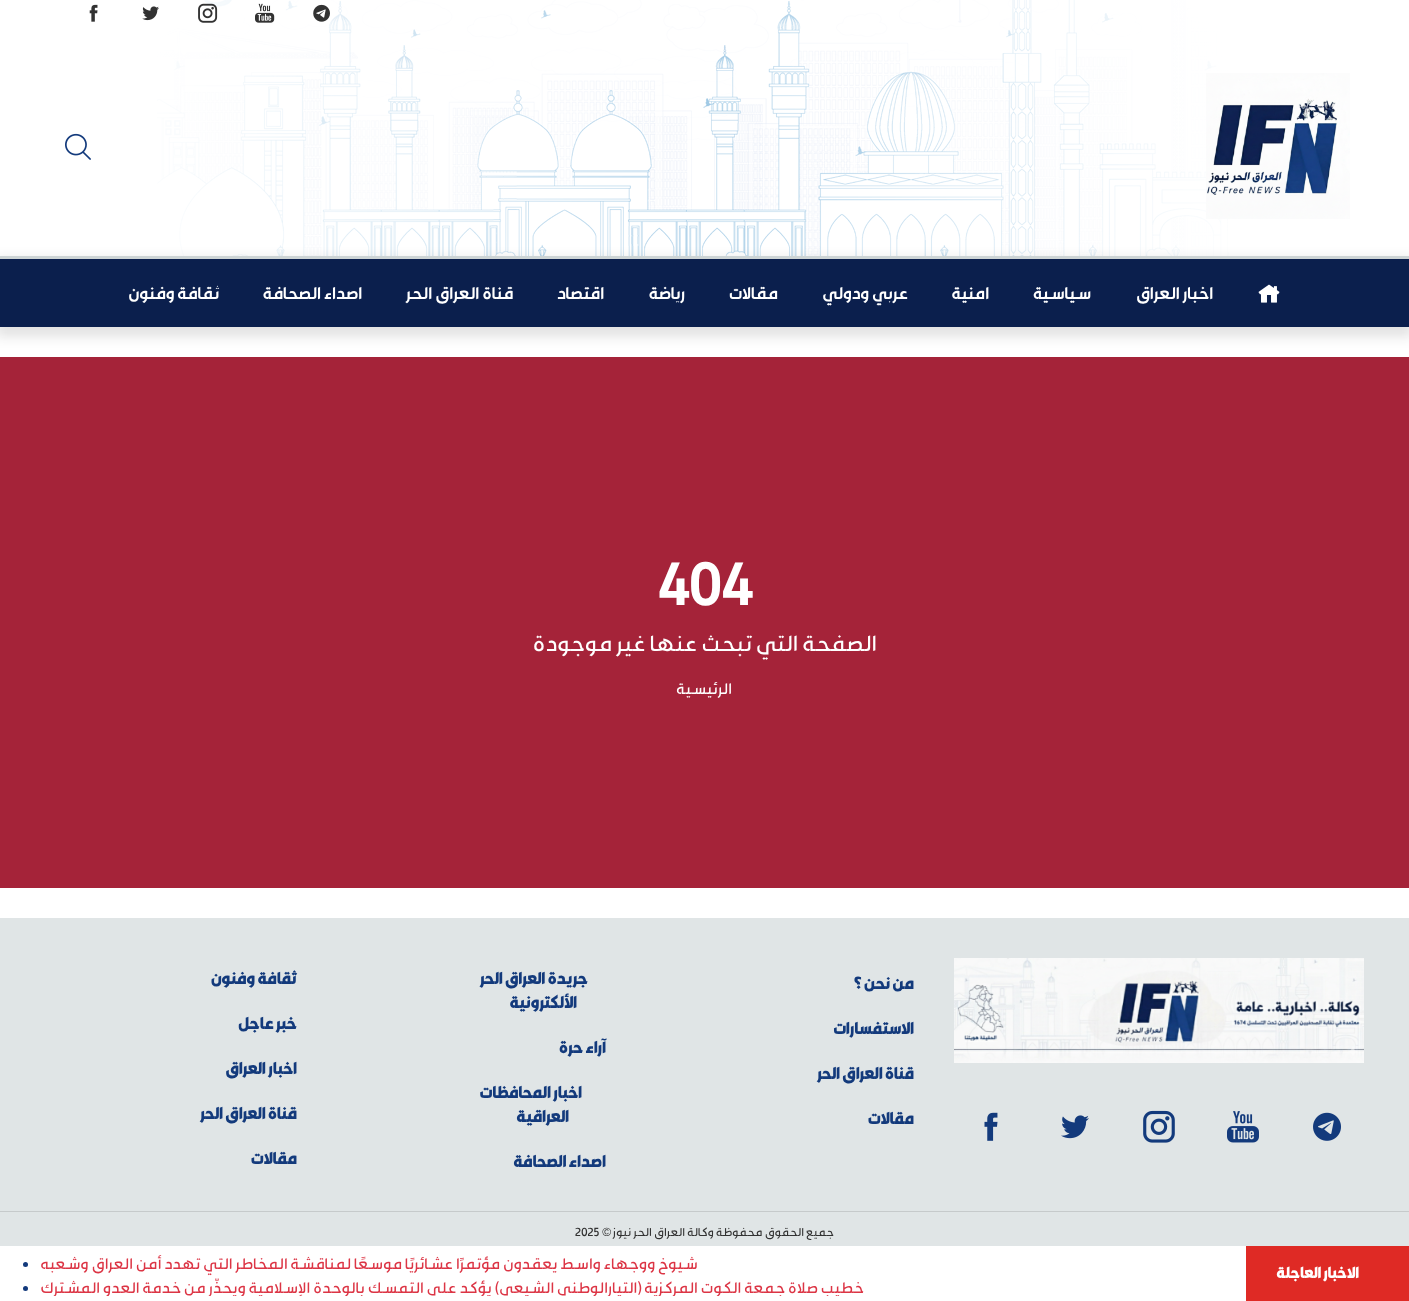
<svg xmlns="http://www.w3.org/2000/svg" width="1409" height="1301">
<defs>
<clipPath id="clip1"><rect y="1251" width="1409" height="45"/></clipPath>
</defs>
<rect width="100%" height="100%" fill="#fff"/>
<image x="157" y="0" width="1072" height="256" href="media/1.png"/>
<image x="313" y="4" width="17" height="18" href="media/2.png"/>
<image x="255" y="3" width="20" height="20" href="media/3.png"/>
<image x="198" y="3" width="20" height="20" href="media/4.png"/>
<image x="142" y="6" width="17" height="15" href="media/5.png"/>
<image x="89" y="4" width="9" height="18" href="media/6.png"/>
<image x="1206" y="73" width="144" height="146" href="media/7.png"/>
<image x="65" y="133" width="26" height="27" href="media/8.png"/>
<rect x="-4" y="258" width="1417" height="79" fill="#1717171f" filter="blur(6px)"/>
<rect y="259" width="1409" height="68" fill="#0b1f4d"/>
<rect y="256" width="1409" height="3" fill="#cdd4d5"/>
<image x="1258" y="284" width="22" height="19" href="media/9.png"/>
<text x="1213" y="299" style="font-family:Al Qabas;font-size:17px;font-weight:bold;direction:rtl;fill:#fff">اخبار العراق</text>
<text x="1091" y="299" style="font-family:Al Qabas;font-size:17px;font-weight:bold;direction:rtl;fill:#fff">سياسية</text>
<text x="989" y="299" style="font-family:Al Qabas;font-size:17px;font-weight:bold;direction:rtl;fill:#fff">امنية</text>
<text x="908" y="299" style="font-family:Al Qabas;font-size:17px;font-weight:bold;direction:rtl;fill:#fff">عربي ودولي</text>
<text x="778" y="299" style="font-family:Al Qabas;font-size:17px;font-weight:bold;direction:rtl;fill:#fff">مقالات</text>
<text x="685" y="299" style="font-family:Al Qabas;font-size:17px;font-weight:bold;direction:rtl;fill:#fff">رياضة</text>
<text x="604" y="299" style="font-family:Al Qabas;font-size:17px;font-weight:bold;direction:rtl;fill:#fff">اقتصاد</text>
<text x="513" y="299" style="font-family:Al Qabas;font-size:17px;font-weight:bold;direction:rtl;fill:#fff">قناة العراق الحر</text>
<text x="362" y="299" style="font-family:Al Qabas;font-size:17px;font-weight:bold;direction:rtl;fill:#fff">اصداء الصحافة</text>
<text x="219" y="299" style="font-family:Al Qabas;font-size:17px;font-weight:bold;direction:rtl;fill:#fff">ثقافة وفنون</text>
<rect x="1246" y="1246" width="163" height="55" fill="#df2a25"/>
<text x="1359" y="1278" style="font-family:'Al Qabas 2';font-size:15px;font-weight:bold;direction:rtl;fill:#fff">الاخبار العاجلة</text>
<text x="698" y="1269" style="font-family:Al Qabas;font-size:16px;direction:rtl;fill:#dc3545">شيوخ ووجهاء واسط يعقدون مؤتمرًا عشائريًا موسعًا لمناقشة المخاطر التي تهدد أمن العراق وشعبه</text>
<circle cx="25.5" cy="1264.5" r="2.5" fill="#133a7c"/>
<g clip-path="url(#clip1)">
<text x="864" y="1293" style="font-family:Al Qabas;font-size:16px;direction:rtl;fill:#dc3545">خطيب صلاة جمعة الكوت المركزية</text>
<text x="642" y="1293" style="font-family:Al Qabas;font-size:16px;direction:rtl;fill:#dc3545">(التيارالوطني الشيعي) يؤكد على التمسك بالوحدة الإسلامية ويحذّر من خدمة العدو المشترك</text>
</g>
<circle cx="25.5" cy="1288.5" r="2.5" fill="#133a7c"/>
<rect y="357" width="1409" height="531" fill="#a52339"/>
<text x="658" y="605" style="font-family:Al Qabas;font-size:60px;font-weight:bold;fill:#fff">404</text>
<text x="877" y="651" style="font-family:Al Qabas;font-size:23px;direction:rtl;fill:#fff">الصفحة التي تبحث عنها غير موجودة</text>
<text x="732" y="694" style="font-family:Al Qabas;font-size:16px;direction:rtl;fill:#fff">الرئيسية</text>
<rect y="918" width="1409" height="328" fill="#e0e5e6"/>
<image x="954" y="958" width="410" height="105" href="media/10.png"/>
<image x="1313" y="1112" width="28" height="29" href="media/11.png"/>
<image x="1227" y="1111" width="32" height="32" href="media/12.png"/>
<image x="1143" y="1110" width="32" height="33" href="media/13.png"/>
<image x="1061" y="1115" width="28" height="24" href="media/14.png"/>
<image x="984" y="1112" width="14" height="29" href="media/15.png"/>
<text x="914" y="989" style="font-family:'Al Qabas 2';font-size:16px;font-weight:bold;direction:rtl;fill:#133a7c">من نحن ؟</text>
<text x="588" y="984" style="font-family:'Al Qabas 2';font-size:16px;font-weight:bold;direction:rtl;fill:#133a7c">جريدة العراق الحر</text>
<text x="577" y="1008" style="font-family:'Al Qabas 2';font-size:16px;font-weight:bold;direction:rtl;fill:#133a7c">الألكترونية</text>
<text x="297" y="984" style="font-family:'Al Qabas 2';font-size:16px;font-weight:bold;direction:rtl;fill:#133a7c">ثقافة وفنون</text>
<text x="914" y="1034" style="font-family:'Al Qabas 2';font-size:16px;font-weight:bold;direction:rtl;fill:#133a7c">الاستفسارات</text>
<text x="297" y="1029" style="font-family:'Al Qabas 2';font-size:16px;font-weight:bold;direction:rtl;fill:#133a7c">خبر عاجل</text>
<text x="606" y="1053" style="font-family:'Al Qabas 2';font-size:16px;font-weight:bold;direction:rtl;fill:#133a7c">آراء حرة</text>
<text x="914" y="1079" style="font-family:'Al Qabas 2';font-size:16px;font-weight:bold;direction:rtl;fill:#133a7c">قناة العراق الحر</text>
<text x="297" y="1074" style="font-family:'Al Qabas 2';font-size:16px;font-weight:bold;direction:rtl;fill:#133a7c">اخبار العراق</text>
<text x="914" y="1124" style="font-family:'Al Qabas 2';font-size:16px;font-weight:bold;direction:rtl;fill:#133a7c">مقالات</text>
<text x="582" y="1098" style="font-family:'Al Qabas 2';font-size:16px;font-weight:bold;direction:rtl;fill:#133a7c">اخبار المحافظات</text>
<text x="569" y="1122" style="font-family:'Al Qabas 2';font-size:16px;font-weight:bold;direction:rtl;fill:#133a7c">العراقية</text>
<text x="297" y="1119" style="font-family:'Al Qabas 2';font-size:16px;font-weight:bold;direction:rtl;fill:#133a7c">قناة العراق الحر</text>
<text x="606" y="1167" style="font-family:'Al Qabas 2';font-size:16px;font-weight:bold;direction:rtl;fill:#133a7c">اصداء الصحافة</text>
<text x="297" y="1164" style="font-family:'Al Qabas 2';font-size:16px;font-weight:bold;direction:rtl;fill:#133a7c">مقالات</text>
<rect y="1211" width="1409" height="1" fill="#c6cacb"/>
<text x="834" y="1236" style="font-family:Al Qabas;font-size:12px;direction:rtl;fill:#323232">جميع الحقوق محفوظة وكالة العراق الحر نيوز</text>
<text x="611" y="1236" style="font-family:Liberation Sans;font-size:12px;direction:rtl;fill:#323232">©</text>
<text x="575" y="1236" style="font-family:Al Qabas;font-size:12px;fill:#323232">2025</text>
</svg>
